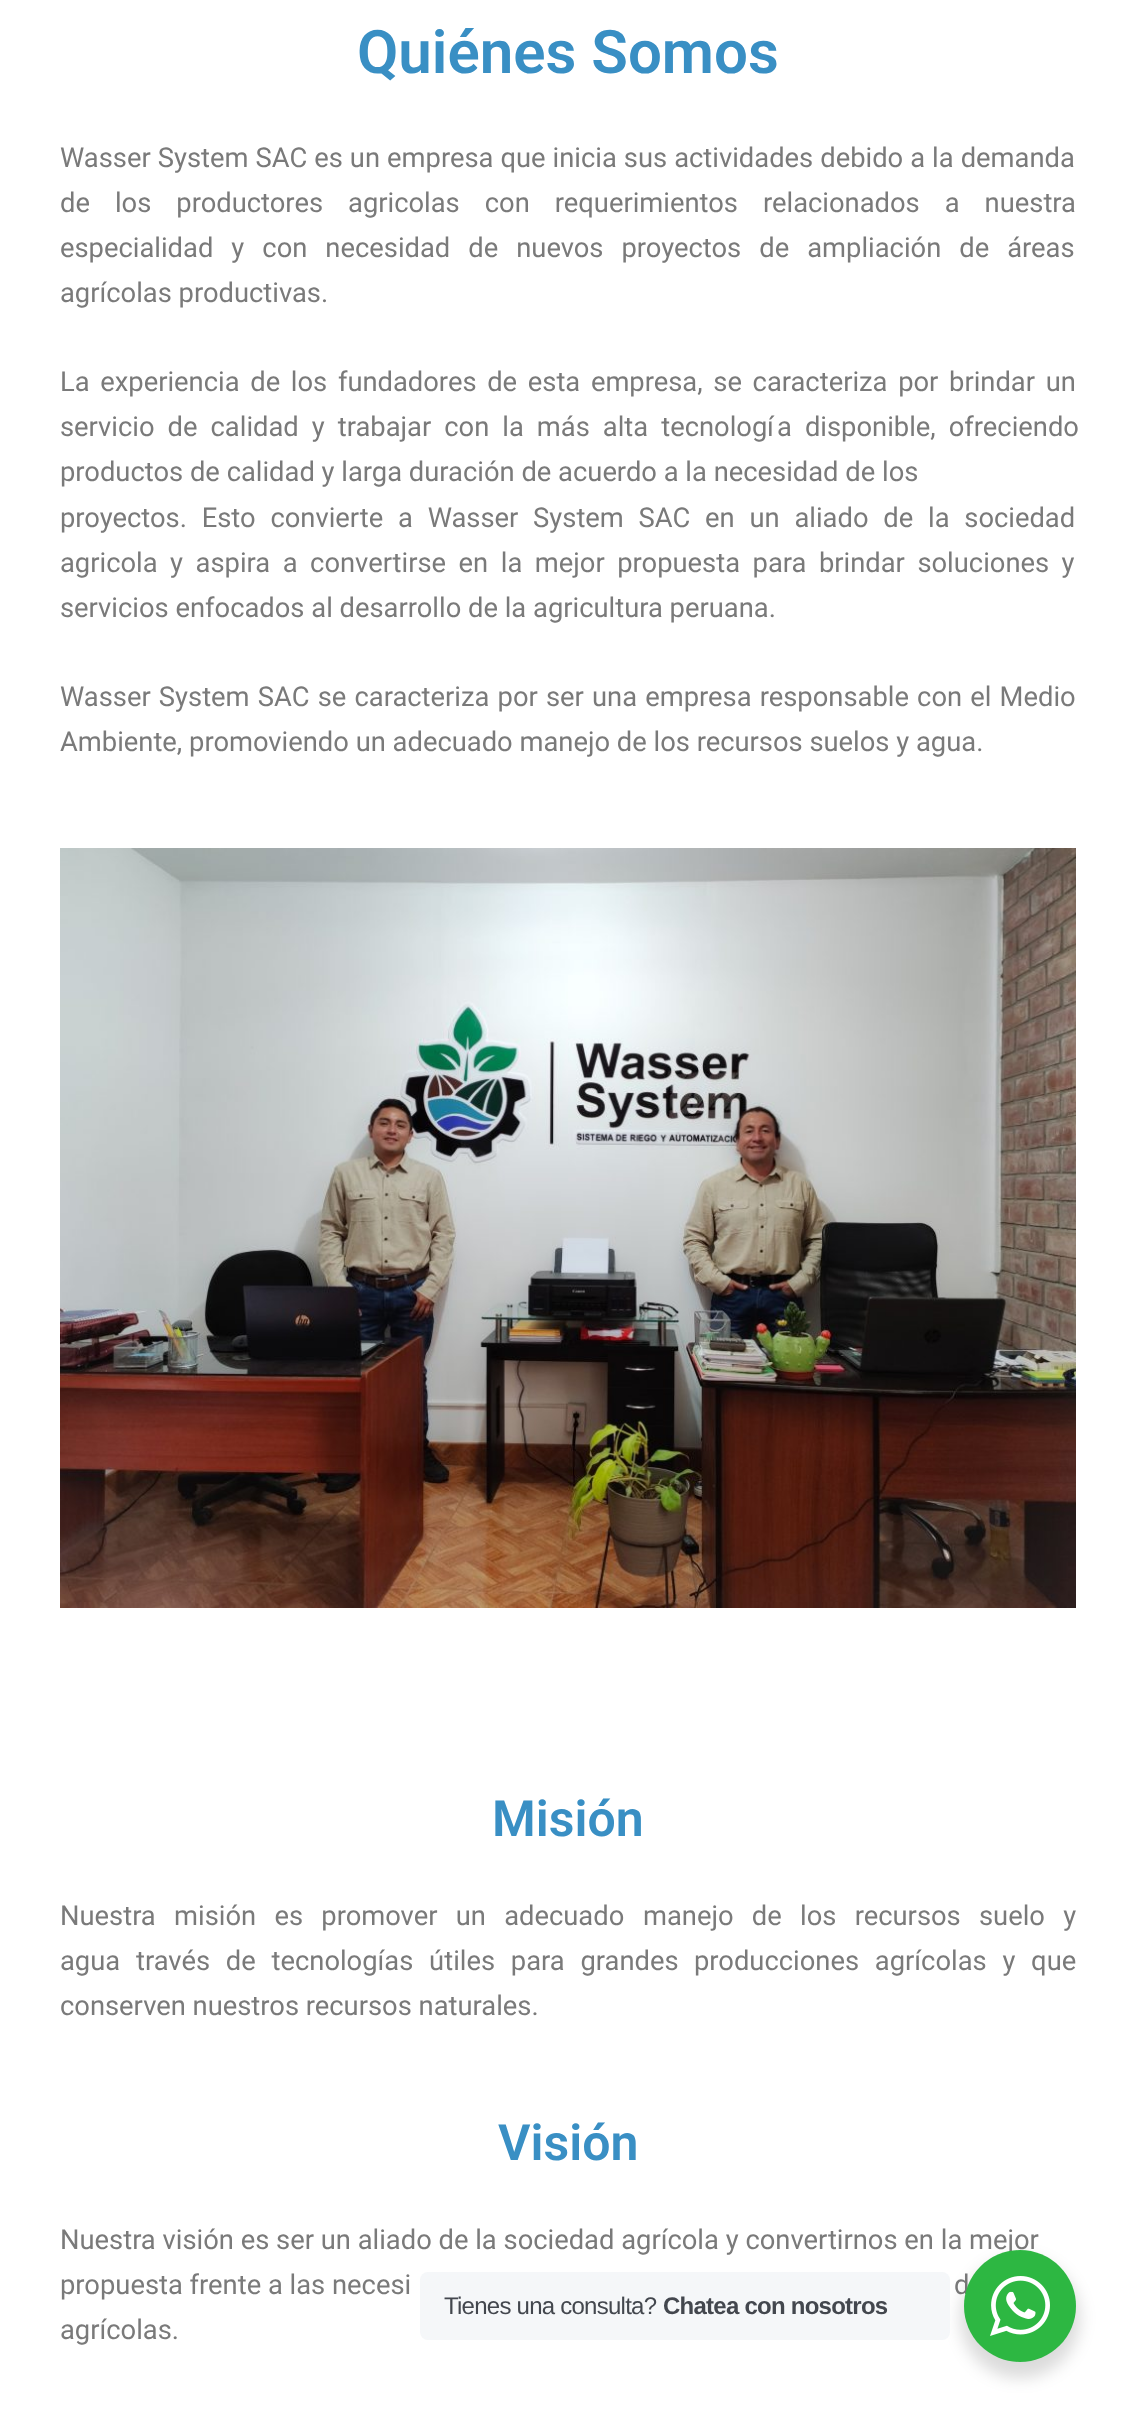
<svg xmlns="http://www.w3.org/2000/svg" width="1135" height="2421">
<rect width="100%" height="100%" fill="#fff"/>
<text x="357" y="73" style="font-family:Roboto;font-size:60px;font-weight:600;fill:#398fc4">Quiénes Somos</text>
<text x="60" y="167" word-spacing="0.25" style="font-family:Roboto;font-size:27.35px;fill:#7a7a7a">Wasser System SAC es un empresa que inicia sus actividades debido a la demanda</text>
<text x="60" y="212" word-spacing="18.25" style="font-family:Roboto;font-size:27.35px;fill:#7a7a7a">de los productores agricolas con requerimientos relacionados a nuestra</text>
<text x="60" y="257" word-spacing="11.25" style="font-family:Roboto;font-size:27.35px;fill:#7a7a7a">especialidad y con necesidad de nuevos proyectos de ampliación de áreas</text>
<text x="60" y="302" style="font-family:Roboto;font-size:27.35px;fill:#7a7a7a">agrícolas productivas.</text>
<text x="60" y="391" word-spacing="3.9" style="font-family:Roboto;font-size:27.35px;fill:#7a7a7a">La experiencia de los fundadores de esta empresa, se caracteriza por brindar un</text>
<text x="60" y="436" word-spacing="6.25" style="font-family:Roboto;font-size:27.35px;fill:#7a7a7a">servicio de calidad y trabajar con la más alta tecnolog</text>
<text x="777" y="436" word-spacing="6.25" style="font-family:Roboto;font-size:27.35px;fill:#7a7a7a">a disponible, ofreciendo</text>
<text x="767" y="436" style="font-family:Roboto;font-size:27.35px;fill:#7a7a7a">í</text>
<text x="60" y="481" style="font-family:Roboto;font-size:27.35px;fill:#7a7a7a">productos de calidad y larga duración de acuerdo a la necesidad de los</text>
<text x="60" y="527" word-spacing="8" style="font-family:Roboto;font-size:27.35px;fill:#7a7a7a">proyectos. Esto convierte a Wasser System SAC en un aliado de la sociedad</text>
<text x="60" y="572" word-spacing="5.75" style="font-family:Roboto;font-size:27.35px;fill:#7a7a7a">agricola y aspira a convertirse en la mejor propuesta para brindar soluciones y</text>
<text x="60" y="617" style="font-family:Roboto;font-size:27.35px;fill:#7a7a7a">servicios enfocados al desarrollo de la agricultura peruana.</text>
<text x="60" y="706" word-spacing="1.4" style="font-family:Roboto;font-size:27.35px;fill:#7a7a7a">Wasser System SAC se caracteriza por ser una empresa responsable con el Medio</text>
<text x="60" y="751" style="font-family:Roboto;font-size:27.35px;fill:#7a7a7a">Ambiente, promoviendo un adecuado manejo de los recursos suelos y agua.</text>
<image x="60" y="848" width="1016" height="760" href="media/1.png"/>
<text x="492" y="1836" style="font-family:Roboto;font-size:50px;font-weight:600;fill:#398fc4">Misión</text>
<text x="60" y="1925" word-spacing="11.5" style="font-family:Roboto;font-size:27.35px;fill:#7a7a7a">Nuestra misión es promover un adecuado</text>
<text x="643" y="1925" word-spacing="11.5" style="font-family:Roboto;font-size:27.35px;fill:#7a7a7a">manejo de los recursos suelo y</text>
<text x="60" y="1970" style="font-family:Roboto;font-size:27.35px;fill:#7a7a7a">agua</text>
<text x="136" y="1970" word-spacing="9" style="font-family:Roboto;font-size:27.35px;fill:#7a7a7a">través de tecnologías útiles para grandes</text>
<text x="694" y="1970" word-spacing="9" style="font-family:Roboto;font-size:27.35px;fill:#7a7a7a">producciones agrícolas y que</text>
<text x="60" y="2015" style="font-family:Roboto;font-size:27.35px;fill:#7a7a7a">conserven nuestros recursos naturales.</text>
<text x="498" y="2160" style="font-family:Roboto;font-size:50px;font-weight:600;fill:#398fc4">Visión</text>
<text x="60" y="2249" style="font-family:Roboto;font-size:27.35px;fill:#7a7a7a">Nuestra visión es ser un aliado de la sociedad agrícola y convertirnos en la</text>
<text x="969" y="2249" style="font-family:Roboto;font-size:27.35px;fill:#7a7a7a">mejor</text>
<text x="60" y="2294" style="font-family:Roboto;font-size:27.35px;fill:#7a7a7a">propuesta frente a las necesi</text>
<text x="954" y="2294" style="font-family:Roboto;font-size:27.35px;fill:#7a7a7a">d</text>
<text x="60" y="2339" style="font-family:Roboto;font-size:27.35px;fill:#7a7a7a">agrícolas.</text>
<rect x="960" y="2258" width="120" height="120" rx="60" fill="#00000024" filter="blur(8px)"/>
<rect x="420" y="2272" width="530" height="68" rx="8" fill="#f5f7f9"/>
<text x="444" y="2314" style="font-family:Liberation Sans;font-size:24px;letter-spacing:-0.75px;fill:#43474e">Tienes una consulta?</text>
<text x="663" y="2314" style="font-family:Liberation Sans;font-size:24px;font-weight:bold;letter-spacing:-0.75px;fill:#43474e">Chatea con nosotros</text>
<circle cx="1020" cy="2306" r="56" fill="#2db742"/>
<image x="990" y="2276" width="60" height="60" href="media/2.png"/>
</svg>
